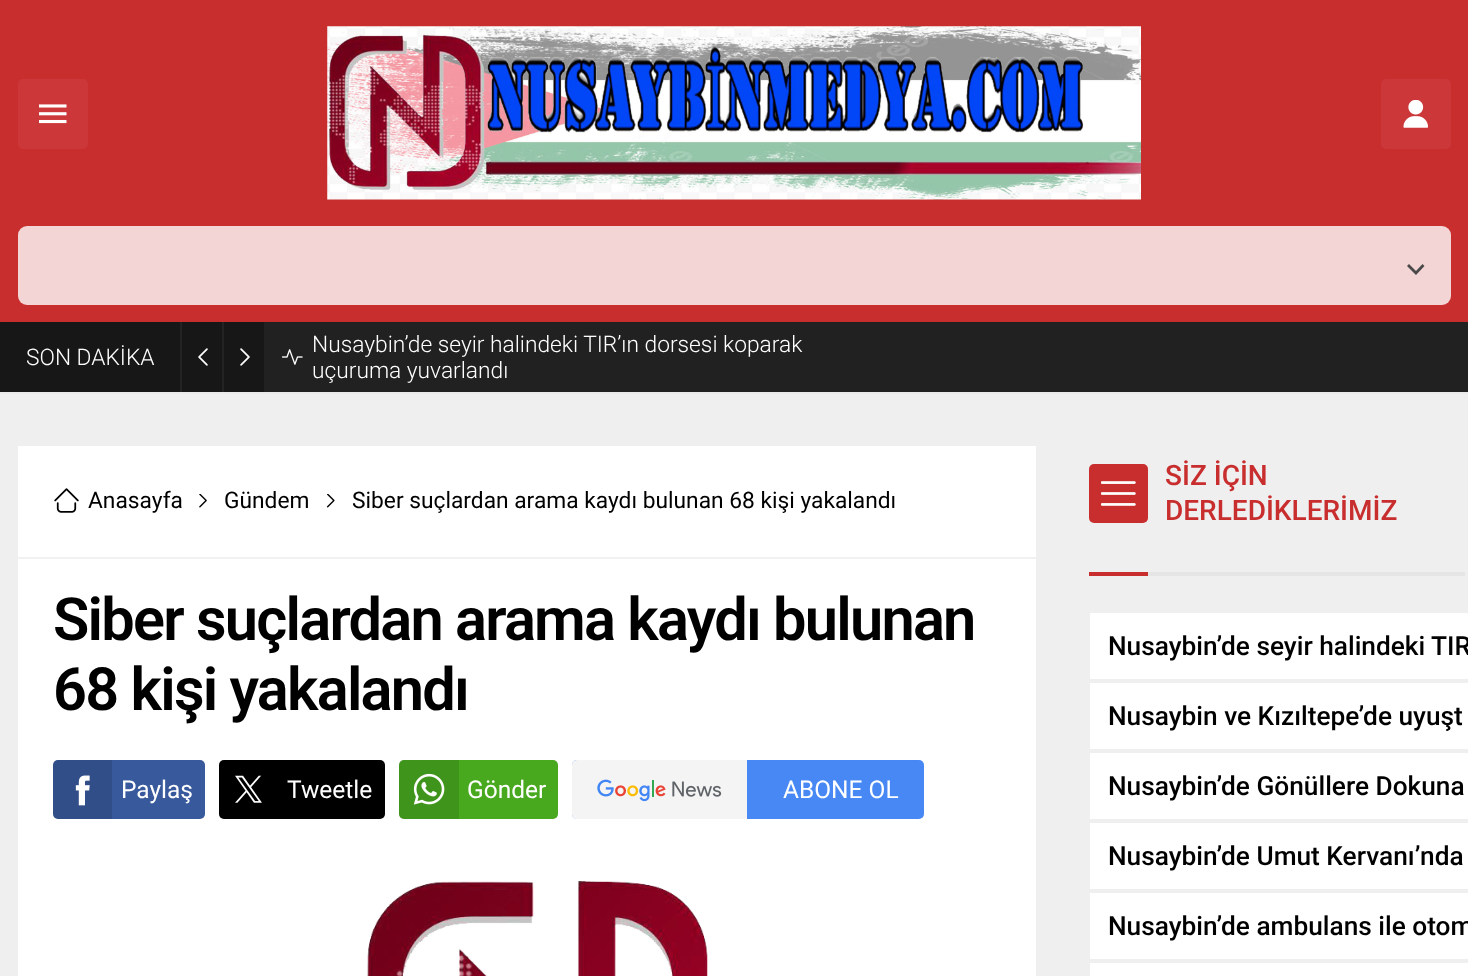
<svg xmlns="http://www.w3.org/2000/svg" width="1468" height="976">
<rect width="100%" height="100%" fill="#efefef"/>
<rect y="392" width="1468" height="2" fill="#eaeaea"/>
<rect width="1468" height="322" fill="#c92e2f"/>
<rect x="18" y="79" width="70" height="70" rx="5" fill="#cc3839"/>
<image x="39" y="104" width="28" height="20" href="media/1.png"/>
<image x="327" y="26" width="814" height="174" href="media/2.png"/>
<rect x="1381" y="79" width="70" height="70" rx="5" fill="#cc3839"/>
<image x="1403" y="100" width="25" height="28" href="media/3.png"/>
<rect x="18" y="226" width="1433" height="79" rx="9" fill="#f4d5d5"/>
<path d="M1422.5 264l-6.5 7l-7-7l-2 2l9 9l8.5-9z" fill="#494949"/>
<rect x="264" y="322" width="1204" height="70" fill="#212121"/>
<rect y="322" width="264" height="70" fill="#171717"/>
<text x="26" y="365" style="font-family:Roboto;font-size:22.75px;font-weight:300;fill:#fff">SON DAKİKA</text>
<rect x="180" y="322" width="2" height="70" fill="#232323"/>
<image x="198" y="348" width="10" height="18" href="media/4.png"/>
<rect x="222" y="322" width="2" height="70" fill="#232323"/>
<image x="240" y="348" width="10" height="18" href="media/5.png"/>
<image x="282" y="349" width="21" height="16" href="media/6.png"/>
<text x="312" y="352" style="font-family:Roboto;font-size:22.75px;font-weight:300;fill:#fff">Nusaybin’de seyir halindeki TIR’ın dorsesi koparak</text>
<text x="312" y="378" style="font-family:Roboto;font-size:22.75px;font-weight:300;fill:#fff">uçuruma yuvarlandı</text>
<rect x="18" y="446" width="1018" height="530" fill="#fff"/>
<rect x="18" y="557" width="1018" height="2" fill="#f1f1f1"/>
<image x="54" y="488" width="25" height="25" href="media/7.png"/>
<text x="88" y="508" style="font-family:Roboto;font-size:22.75px;fill:#000">Anasayfa</text>
<image x="199" y="494" width="8" height="14" href="media/8.png"/>
<text x="224" y="508" style="font-family:Roboto;font-size:22.75px;fill:#000">Gündem</text>
<image x="326" y="494" width="9" height="14" href="media/9.png"/>
<text x="352" y="508" style="font-family:Roboto;font-size:22.75px;fill:#000">Siber suçlardan arama kaydı bulunan 68 kişi yakalandı</text>
<text x="53" y="640" style="font-family:Roboto;font-size:59.5px;font-weight:600;letter-spacing:-1.75px;fill:#000">Siber suçlardan arama kaydı bulunan</text>
<text x="53" y="710" style="font-family:Roboto;font-size:59.5px;font-weight:600;letter-spacing:-1.75px;fill:#000">68 kişi yakalandı</text>
<rect x="53" y="760" width="152" height="59" rx="5" fill="#38599b"/>
<path d="M58 760h54v59h-54c-3 0-5-2-5-5v-49c0-3 2-5 5-5z" fill="#0000001f"/>
<image x="75" y="775" width="15" height="31" href="media/10.png"/>
<text x="121" y="798" style="font-family:Roboto;font-size:24.5px;fill:#fff">Paylaş</text>
<rect x="219" y="760" width="166" height="59" rx="5" fill="#000"/>
<path d="M224 760h54v59h-54c-3 0-5-2-5-5v-49c0-3 2-5 5-5z" fill="#0000001f"/>
<image x="235" y="775" width="27" height="28" href="media/11.png"/>
<text x="287" y="798" style="font-family:Roboto;font-size:24.5px;fill:#fff">Tweetle</text>
<rect x="399" y="760" width="159" height="59" rx="5" fill="#48a91f"/>
<path d="M404 760h55v59h-55c-3 0-5-2-5-5v-49c0-3 2-5 5-5z" fill="#0000001f"/>
<image x="413" y="773" width="32" height="32" href="media/12.png"/>
<text x="467" y="798" style="font-family:Roboto;font-size:24.5px;fill:#fff">Gönder</text>
<rect x="572" y="760" width="352" height="59" rx="5" fill="#4788f4"/>
<path d="M577 760h170v59h-170c-3 0-5-2-5-5v-49c0-3 2-5 5-5z" fill="#f4f4f4"/>
<image x="597" y="779" width="125" height="23" href="media/13.png"/>
<text x="783" y="798" style="font-family:Roboto;font-size:24.5px;fill:#fff">ABONE OL</text>
<image x="53" y="837" width="948" height="139" href="media/14.png"/>
<rect x="1148" y="572" width="317" height="4" fill="#e5e5e5"/>
<rect x="1089" y="464" width="59" height="59" rx="5" fill="#c92e2f"/>
<image x="1101" y="481" width="35" height="25" href="media/15.png"/>
<text x="1165" y="485" style="font-family:Roboto;font-size:28px;font-weight:500;fill:#c92e2f">SİZ İÇİN</text>
<text x="1165" y="520" style="font-family:Roboto;font-size:28px;font-weight:500;fill:#c92e2f">DERLEDİKLERİMİZ</text>
<rect x="1089" y="572" width="59" height="4" fill="#c92e2f"/>
<rect x="1090" y="613" width="378" height="66" fill="#fff"/>
<text x="1108" y="655" style="font-family:Roboto;font-size:26.25px;font-weight:500;fill:#000">Nusaybin’de seyir halindeki TIR</text>
<rect x="1090" y="683" width="378" height="66" fill="#fff"/>
<text x="1108" y="725" style="font-family:Roboto;font-size:26.25px;font-weight:500;fill:#000">Nusaybin ve Kızıltepe’de uyuşt</text>
<rect x="1090" y="753" width="378" height="66" fill="#fff"/>
<text x="1108" y="795" style="font-family:Roboto;font-size:26.25px;font-weight:500;fill:#000">Nusaybin’de Gönüllere Dokuna</text>
<rect x="1090" y="823" width="378" height="66" fill="#fff"/>
<text x="1108" y="865" style="font-family:Roboto;font-size:26.25px;font-weight:500;fill:#000">Nusaybin’de Umut Kervanı’nda</text>
<rect x="1090" y="893" width="378" height="66" fill="#fff"/>
<text x="1108" y="935" style="font-family:Roboto;font-size:26.25px;font-weight:500;fill:#000">Nusaybin’de ambulans ile otom</text>
<rect x="1090" y="963" width="378" height="13" fill="#fff"/>
</svg>
